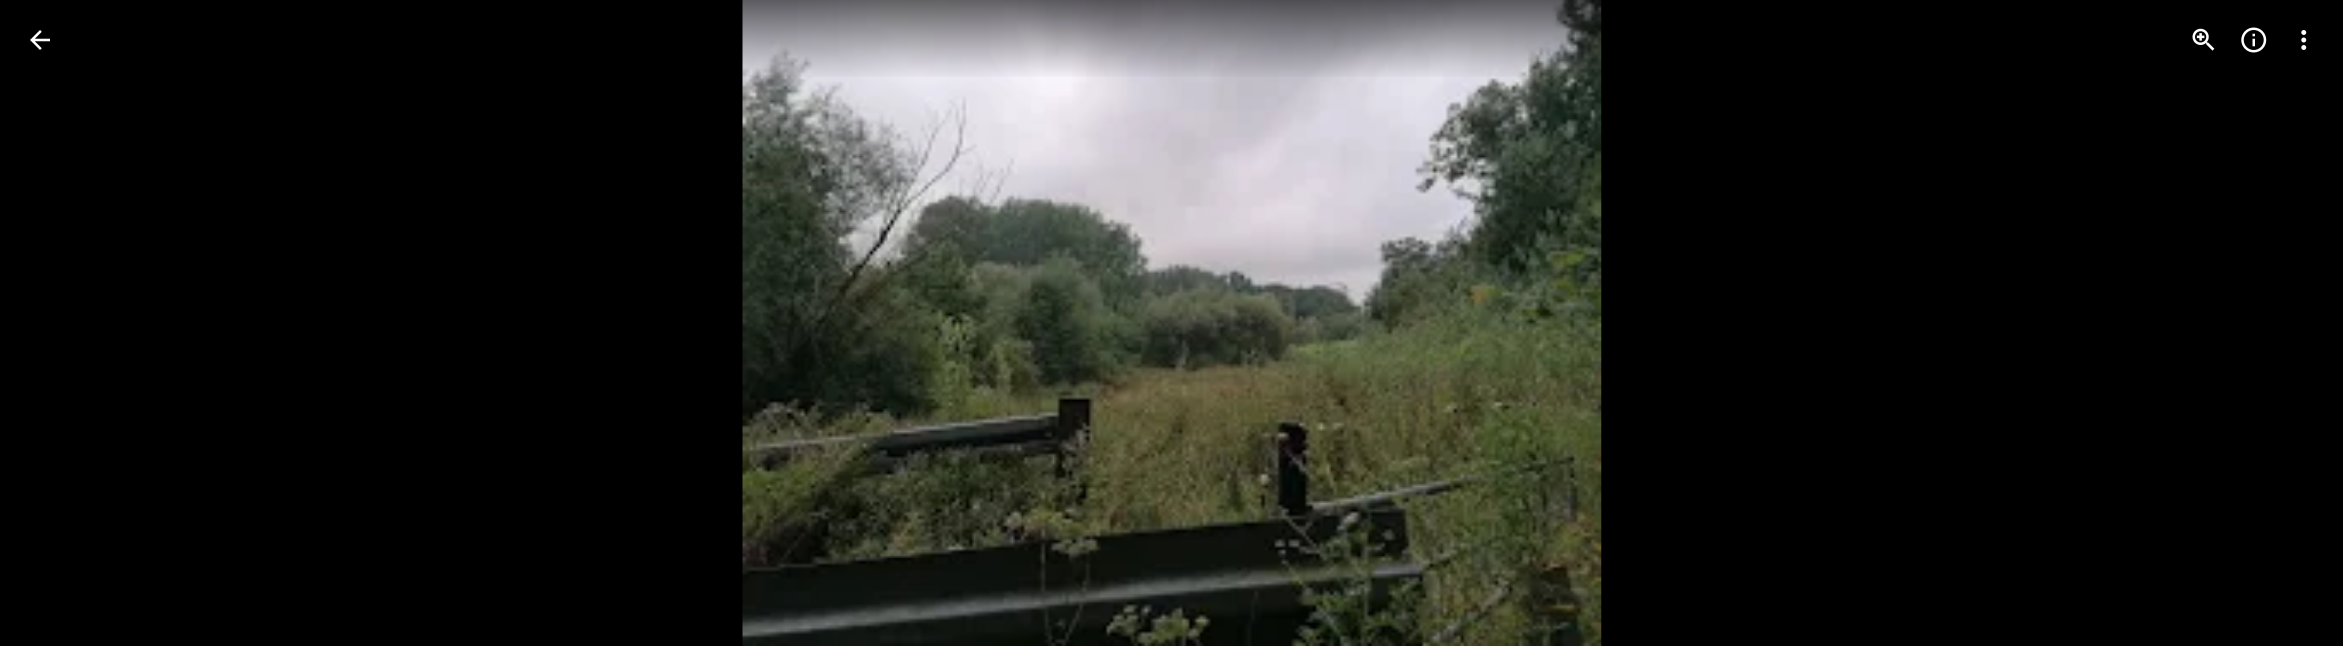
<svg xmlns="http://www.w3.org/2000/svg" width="2343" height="646">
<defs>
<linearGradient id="g1" gradientUnits="userSpaceOnUse" x1="1172" y1="0" x2="1172" y2="80"><stop offset="0" stop-color="#000" stop-opacity="0.6"/><stop offset="1" stop-color="#000" stop-opacity="0"/></linearGradient>
</defs>
<rect width="100%" height="100%" fill="#000"/>
<image x="742" y="0" width="860" height="646" href="media/5.png"/>
<rect x="742" width="860" height="77" fill="url(#g1)"/>
<image x="30" y="30" width="20" height="20" href="media/1.png"/>
<image x="2192" y="28" width="23" height="23" href="media/2.png"/>
<image x="2241" y="27" width="26" height="26" href="media/3.png"/>
<image x="2301" y="30" width="6" height="20" href="media/4.png"/>
</svg>
